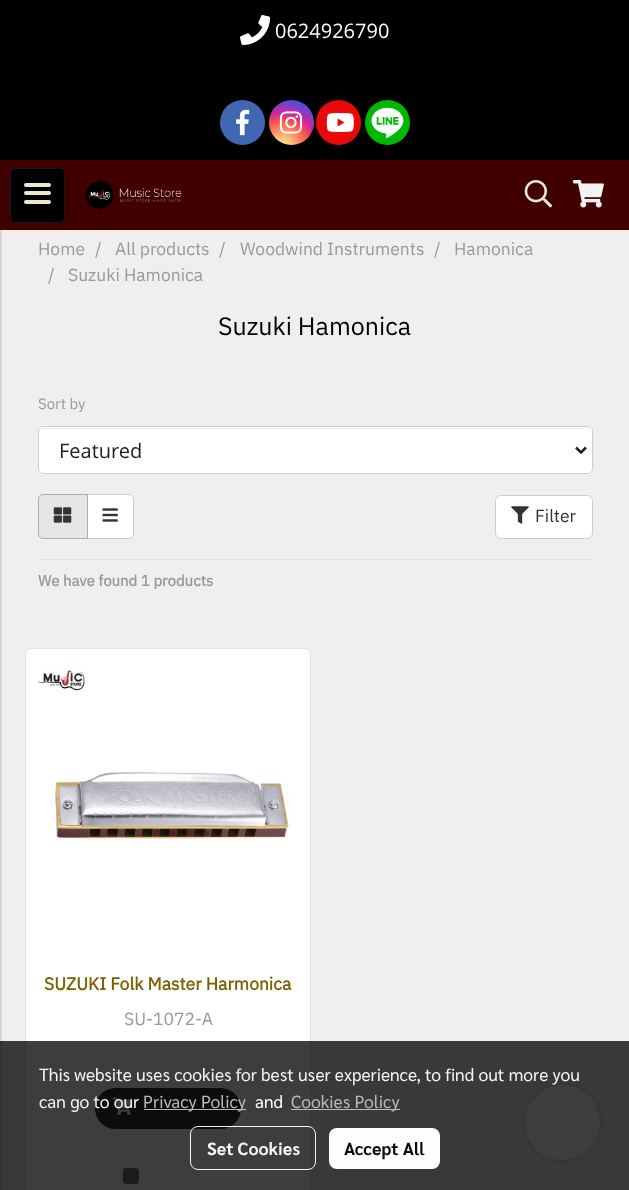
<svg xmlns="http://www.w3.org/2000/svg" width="629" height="1190">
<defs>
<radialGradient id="g1" gradientUnits="userSpaceOnUse" cx="282" cy="148" r="58"><stop offset="0" stop-color="#fdf497"/><stop offset="0.05" stop-color="#fdf497"/><stop offset="0.45" stop-color="#fd5949"/><stop offset="0.6" stop-color="#d6249f"/><stop offset="0.9" stop-color="#285aeb"/></radialGradient>
</defs>
<rect width="100%" height="100%" fill="#efefef"/>
<rect y="160" width="629" height="70" fill="#410000"/>
<rect width="629" height="160" fill="#000"/>
<rect x="-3" y="1" width="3" height="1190" fill="#0000003d" filter="blur(1px)"/>
<rect x="-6" y="1" width="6" height="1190" fill="#0000001f" filter="blur(2px)"/>
<rect x="10.5" y="168.5" width="54" height="54" rx="4.5" fill="#000" stroke="#19171b"/>
<rect x="24" y="191" width="27" height="4" rx="2" fill="#eae8d2"/>
<rect x="24" y="183" width="27" height="4" rx="2" fill="#eae8d2"/>
<rect x="24" y="200" width="27" height="4" rx="2" fill="#eae8d2"/>
<image x="85" y="181" width="97" height="28" href="media/1.png"/>
<image x="524" y="180" width="29" height="28" href="media/2.png"/>
<image x="572" y="180" width="32" height="28" href="media/3.png"/>
<image x="240" y="15" width="30" height="30" href="media/4.png"/>
<text x="275" y="38" style="font-family:Open Sans;font-size:20px;fill:#fff">0624926790</text>
<circle cx="242.5" cy="122.5" r="22.5" fill="#4267b2"/>
<image x="236" y="109" width="14" height="27" href="media/5.png"/>
<circle cx="291.5" cy="122.5" r="22.5" fill="url(#g1)"/>
<image x="279" y="111" width="23" height="23" href="media/6.png"/>
<circle cx="338.5" cy="122.5" r="22.5" fill="#eb0808"/>
<image x="326" y="113" width="28" height="19" href="media/7.png"/>
<circle cx="387.5" cy="122.5" r="22.5" fill="#00b800"/>
<image x="365" y="100" width="45" height="45" href="media/8.png"/>
<text x="38" y="255" style="font-family:IBM Plex Sans Thai;font-size:17.5px;fill:#999">Home</text>
<text x="95" y="255" style="font-family:IBM Plex Sans Thai;font-size:17.5px;fill:#999">/</text>
<text x="115" y="255" style="font-family:IBM Plex Sans Thai;font-size:17.5px;fill:#999">All products</text>
<text x="219" y="255" style="font-family:IBM Plex Sans Thai;font-size:17.5px;fill:#999">/</text>
<text x="240" y="255" style="font-family:IBM Plex Sans Thai;font-size:17.5px;fill:#999">Woodwind Instruments</text>
<text x="434" y="255" style="font-family:IBM Plex Sans Thai;font-size:17.5px;fill:#999">/</text>
<text x="454" y="255" style="font-family:IBM Plex Sans Thai;font-size:17.5px;fill:#999">Hamonica</text>
<text x="48" y="281" style="font-family:IBM Plex Sans Thai;font-size:17.5px;fill:#999">/</text>
<text x="68" y="281" style="font-family:IBM Plex Sans Thai;font-size:17.5px;fill:#999">Suzuki Hamonica</text>
<text x="218" y="335" style="font-family:IBM Plex Sans Thai;font-size:25px;fill:#000">Suzuki Hamonica</text>
<text x="38" y="409" style="font-family:IBM Plex Sans Thai;font-size:15px;fill:#999">Sort by</text>
<rect x="38" y="426" width="555" height="48" rx="5" fill="#fff"/>
<path d="M42 429h546l2 1c0-1-2-2-3-2h-544c-1 0-3 1-3 2z" fill="#ececec"/>
<rect x="38.5" y="426.5" width="554" height="47" rx="4.5" fill="none" stroke="#cdced2"/>
<path d="M576 447.5l5 5l5-5" fill="none" stroke="#212121" stroke-width="2.5"/>
<text x="59" y="458" style="font-family:Open Sans;font-size:20px;fill:#212121">Featured</text>
<path d="M86.5 494.5h42.5c2.5 0 4.5 2 4.5 4.5v35c0 2.5-2 4.5-4.5 4.5h-42.5z" fill="#fff" stroke="#ccc"/>
<path d="M43 494.5h44.5v44h-44.5c-2.5 0-4.5-2-4.5-4.5v-35c0-2.5 2-4.5 4.5-4.5z" fill="#e6e6e6" stroke="#adadad"/>
<image x="53" y="507" width="19" height="16" href="media/9.png"/>
<image x="102" y="508" width="16" height="14" href="media/10.png"/>
<rect x="495.5" y="495.5" width="97" height="43" rx="5.5" fill="#fff" stroke="#ccc"/>
<image x="511" y="506" width="18" height="18" href="media/11.png"/>
<text x="535" y="522" style="font-family:IBM Plex Sans Thai;font-size:17.5px;fill:#333">Filter</text>
<rect x="38" y="559" width="555" height="1" fill="#dee2e6"/>
<text x="38" y="586" style="font-family:IBM Plex Sans Thai;font-size:15px;font-weight:bold;fill:#999">We have found 1 products</text>
<rect x="25.5" y="648.5" width="285" height="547" rx="4.5" fill="#fff" stroke="#dee2e6"/>
<image x="38" y="670" width="255" height="178" href="media/12.png"/>
<text x="44" y="990" style="font-family:IBM Plex Sans Thai;font-size:17.5px;font-weight:bold;fill:#7f6000">SUZUKI Folk Master Harmonica</text>
<text x="124" y="1025" style="font-family:IBM Plex Sans Thai;font-size:17.5px;fill:#999">SU-1072-A</text>
<rect x="95" y="1088" width="146" height="41" rx="20.5" fill="#333"/>
<image x="112" y="1097" width="21" height="18" href="media/13.png"/>
<path d="M125.5 1168h9c6 0 4.5 3 4.5 8c0 2 1 8-2.5 8h-9c-6 0-4.5-3-4.5-8c0-2-1-8 2.5-8z" fill="#767676"/>
<rect x="525" y="1085" width="75" height="75" rx="37.5" fill="#00000024" filter="blur(4.5px)"/>
<circle cx="562.5" cy="1122.5" r="37.5" fill="#fff"/>
<rect y="1041" width="629" height="149" fill="#000000c2"/>
<text x="39" y="1081" style="font-family:Sarabun;font-size:17.5px;fill:#f5f5f5">This website uses cookies for best user experience, to find out more you</text>
<text x="39" y="1108" style="font-family:Sarabun;font-size:17.5px;fill:#f5f5f5">can go to our</text>
<rect x="144" y="1109" width="102" height="1" fill="#c2c2c2f2"/>
<text x="143" y="1108" style="font-family:Sarabun;font-size:17.5px;fill:#b9b9b9">Privacy Policy</text>
<text x="255" y="1108" style="font-family:Sarabun;font-size:17.5px;fill:#fff">and</text>
<rect x="291" y="1109" width="109" height="1" fill="#c2c2c2f2"/>
<text x="291" y="1108" style="font-family:Sarabun;font-size:17.5px;fill:#b9b9b9">Cookies Policy</text>
<rect x="190.5" y="1126.5" width="125" height="43" rx="7.5" fill="none" stroke="#fffffff2"/>
<text x="207" y="1155" style="font-family:Sarabun;font-size:17.5px;font-weight:bold;fill:#f5f5f5">Set Cookies</text>
<rect x="329" y="1128" width="111" height="41" rx="8" fill="#fefefe"/>
<text x="344" y="1155" style="font-family:Sarabun;font-size:17.5px;font-weight:bold;fill:#0c0c0c">Accept All</text>
</svg>
